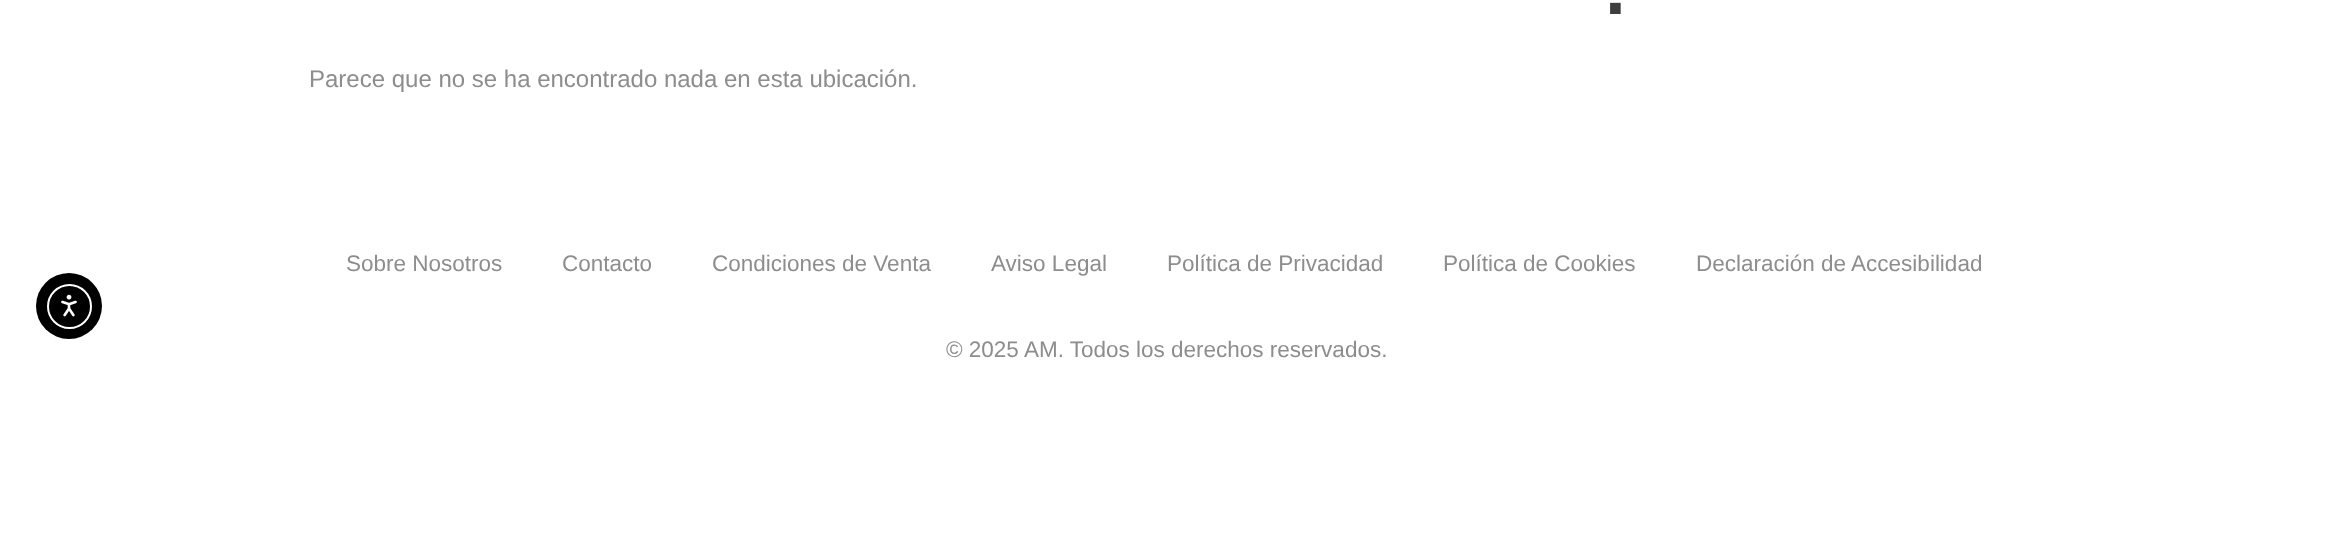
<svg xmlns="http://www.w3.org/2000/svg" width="2328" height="544">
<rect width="100%" height="100%" fill="#fff"/>
<circle cx="69" cy="306" r="33" fill="#000"/>
<circle cx="69.5" cy="306.5" r="21.5" fill="none" stroke="#fff" stroke-width="2"/>
<image x="61" y="294" width="16" height="23" href="media/1.png"/>
<text x="1605" y="14" style="font-family:Liberation Sans;font-size:75px;font-weight:bold;fill:#3e3e3e">.</text>
<text x="309" y="87" style="font-family:Liberation Sans;font-size:24px;fill:#8d8d8d">Parece que no se ha encontrado nada en esta ubicación.</text>
<text x="346" y="271" style="font-family:Liberation Sans;font-size:22.5px;fill:#8d8d8d">Sobre Nosotros</text>
<text x="562" y="271" style="font-family:Liberation Sans;font-size:22.5px;fill:#8d8d8d">Contacto</text>
<text x="712" y="271" style="font-family:Liberation Sans;font-size:22.5px;fill:#8d8d8d">Condiciones de Venta</text>
<text x="991" y="271" style="font-family:Liberation Sans;font-size:22.5px;fill:#8d8d8d">Aviso Legal</text>
<text x="1167" y="271" style="font-family:Liberation Sans;font-size:22.5px;fill:#8d8d8d">Política de Privacidad</text>
<text x="1443" y="271" style="font-family:Liberation Sans;font-size:22.5px;fill:#8d8d8d">Política de Cookies</text>
<text x="1696" y="271" style="font-family:Liberation Sans;font-size:22.5px;fill:#8d8d8d">Declaración de Accesibilidad</text>
<text x="946" y="357" style="font-family:Liberation Sans;font-size:22.5px;fill:#8d8d8d">© 2025 AM. Todos los derechos reservados.</text>
</svg>
